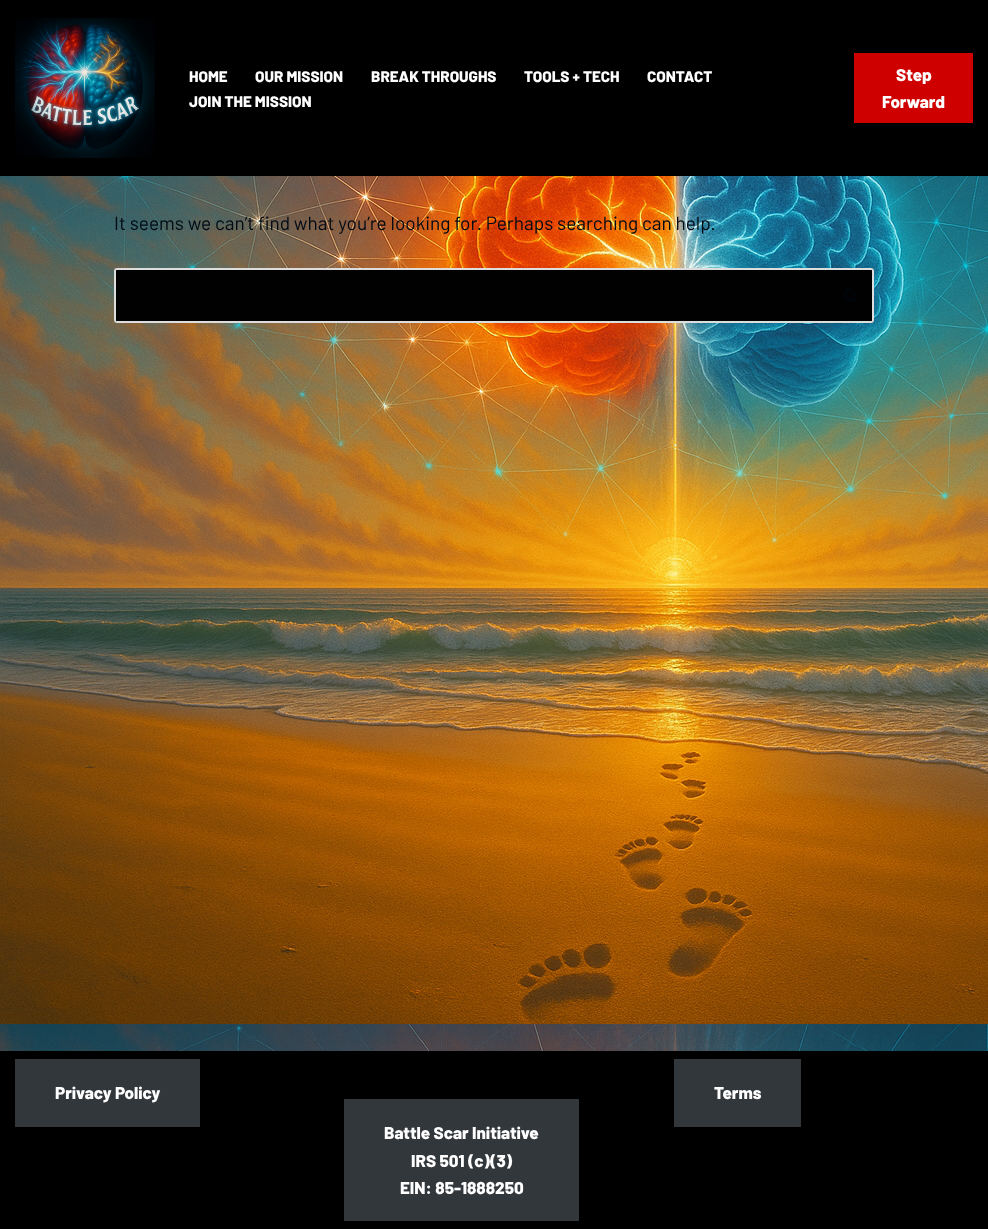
<svg xmlns="http://www.w3.org/2000/svg" width="988" height="1229">
<rect width="100%" height="100%" fill="#fff"/>
<image x="0" y="176" width="988" height="875" href="media/1.png"/>
<rect width="988" height="176" fill="#000"/>
<image x="15" y="18" width="140" height="140" href="media/2.png"/>
<text x="189" y="82" style="font-family:Barlow;font-size:15.25px;font-weight:800;fill:#fff">HOME</text>
<text x="255" y="82" style="font-family:Barlow;font-size:15.25px;font-weight:800;fill:#fff">OUR MISSION</text>
<text x="371" y="82" style="font-family:Barlow;font-size:15.25px;font-weight:800;fill:#fff">BREAK THROUGHS</text>
<text x="524" y="82" style="font-family:Barlow;font-size:15.25px;font-weight:800;fill:#fff">TOOLS + TECH</text>
<text x="647" y="82" style="font-family:Barlow;font-size:15.25px;font-weight:800;fill:#fff">CONTACT</text>
<text x="189" y="107" style="font-family:Barlow;font-size:15.25px;font-weight:800;fill:#fff">JOIN THE MISSION</text>
<rect x="854" y="53" width="119" height="70" fill="#ce0000"/>
<text x="896" y="81" style="font-family:Barlow;font-size:17px;font-weight:800;fill:#fff">Step</text>
<text x="882" y="108" style="font-family:Barlow;font-size:17px;font-weight:800;fill:#fff">Forward</text>
<text x="114" y="230" style="font-family:Barlow;font-size:19px;fill:#000a15">It seems we can’t find what you’re looking for. Perhaps searching can help.</text>
<path d="M117 268h712v55h-712c-1.5 0-3-1.5-3-3v-49c0-1.5 1.5-3 3-3z" fill="#010101"/>
<path d="M117 268h712v55h-712c-2 0-3-1-3-3v-49c0-2 1-3 3-3zm0 2h712v51h-712c-1 0-1 0-1-1v-49c0-1 0-1 1-1z" fill="#ddd" fill-rule="evenodd"/>
<path d="M829 268h42c1.5 0 3 1.5 3 3v49c0 1.5-1.5 3-3 3h-42z" fill="#010101"/>
<path d="M829 268h42c2 0 3 1 3 3v49c0 2-1 3-3 3h-42zm0 2h42c1 0 1 0 1 1v49c0 1 0 1-1 1h-42z" fill="#ddd" fill-rule="evenodd"/>
<image x="843" y="289" width="14" height="14" href="media/3.png"/>
<rect y="1051" width="988" height="178" fill="#000"/>
<rect x="15" y="1059" width="185" height="68" fill="#32373c"/>
<text x="55" y="1099" style="font-family:Barlow;font-size:17px;font-weight:800;fill:#fff">Privacy Policy</text>
<rect x="674" y="1059" width="127" height="68" fill="#32373c"/>
<text x="714" y="1099" style="font-family:Barlow;font-size:17px;font-weight:800;fill:#fff">Terms</text>
<rect x="344" y="1099" width="235" height="122" fill="#32373c"/>
<text x="384" y="1139" style="font-family:Barlow;font-size:17px;font-weight:800;fill:#fff">Battle Scar Initiative</text>
<text x="411" y="1167" style="font-family:Barlow;font-size:17px;font-weight:800;fill:#fff">IRS 501 (c)(3)</text>
<text x="400" y="1194" style="font-family:Barlow;font-size:17px;font-weight:800;fill:#fff">EIN: 85-1888250</text>
</svg>
